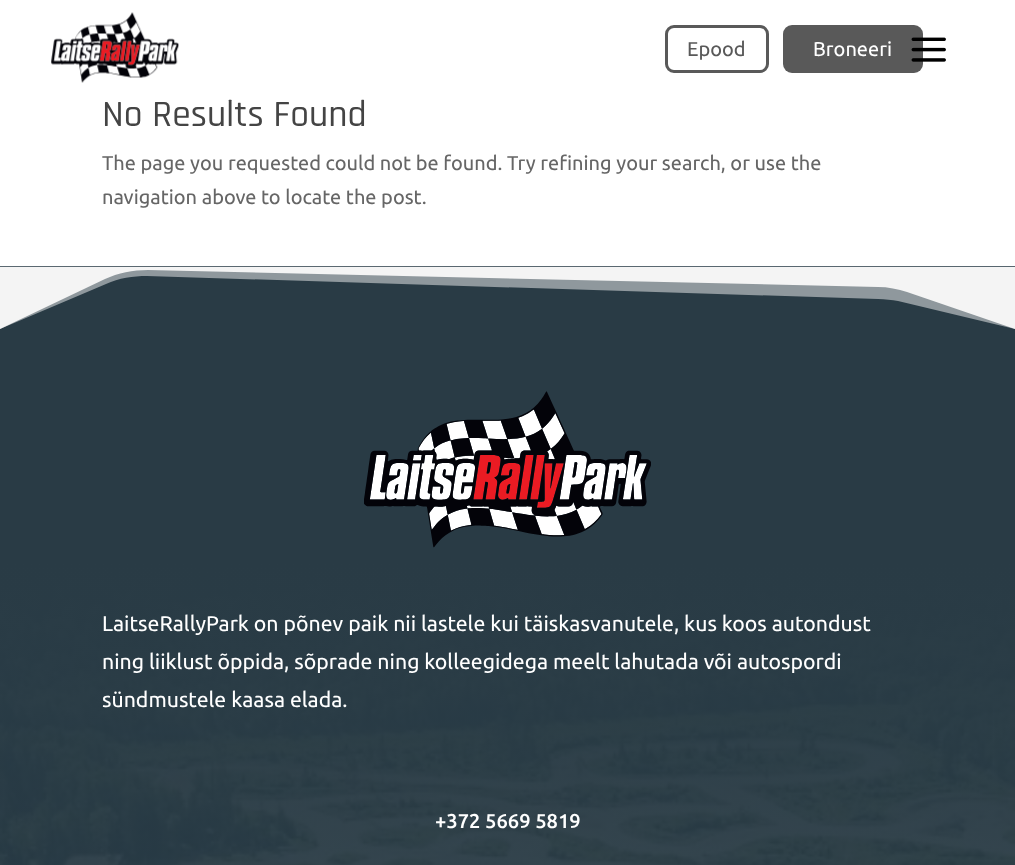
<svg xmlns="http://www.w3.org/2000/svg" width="1015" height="865">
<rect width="100%" height="100%" fill="#fff"/>
<image x="51" y="12" width="128" height="71" href="media/1.png"/>
<image x="911" y="37" width="35" height="25" href="media/2.png"/>
<rect x="666.5" y="26.5" width="101" height="45" rx="7.5" fill="none" stroke="#595959" stroke-width="3"/>
<text x="687" y="56" style="font-family:Ubuntu;font-size:20px;fill:#595959">Epood</text>
<rect x="783" y="25" width="140" height="48" rx="9" fill="#000000a6"/>
<text x="813" y="56" style="font-family:Ubuntu;font-size:20px;fill:#fff">Broneeri</text>
<text x="102" y="126" style="font-family:Rajdhani;font-size:37.5px;font-weight:500;fill:#444">No Results Found</text>
<text x="102" y="170" style="font-family:Ubuntu;font-size:20px;fill:#666">The page you requested could not be found. Try refining your search, or use the</text>
<text x="102" y="204" style="font-family:Ubuntu;font-size:20px;fill:#666">navigation above to locate the post.</text>
<image x="0" y="266" width="1015" height="599" href="media/3.png"/>
<path d="M147 276l731 23c7 0 14 1 20 2l117 28v-62h-1015v62l106-45c13-6 27-8 41-8z" fill="#8f989d"/>
<path d="M148 270l730 17c10 0 20 2 29 5l108 37v-62h-1015v62l105-50c13-6 28-9 43-9z" fill="#f4f4f4"/>
<image x="364" y="391" width="287" height="157" href="media/4.png"/>
<text x="102" y="631" style="font-family:Ubuntu;font-size:21.25px;fill:#fff">LaitseRallyPark on põnev paik nii lastele kui täiskasvanutele, kus koos autondust</text>
<text x="102" y="669" style="font-family:Ubuntu;font-size:21.25px;fill:#fff">ning liiklust õppida, sõprade ning kolleegidega meelt lahutada või autospordi</text>
<text x="102" y="707" style="font-family:Ubuntu;font-size:21.25px;fill:#fff">sündmustele kaasa elada.</text>
<text x="435" y="828" style="font-family:Ubuntu;font-size:20px;font-weight:500;fill:#fff">+372 5669 5819</text>
</svg>
